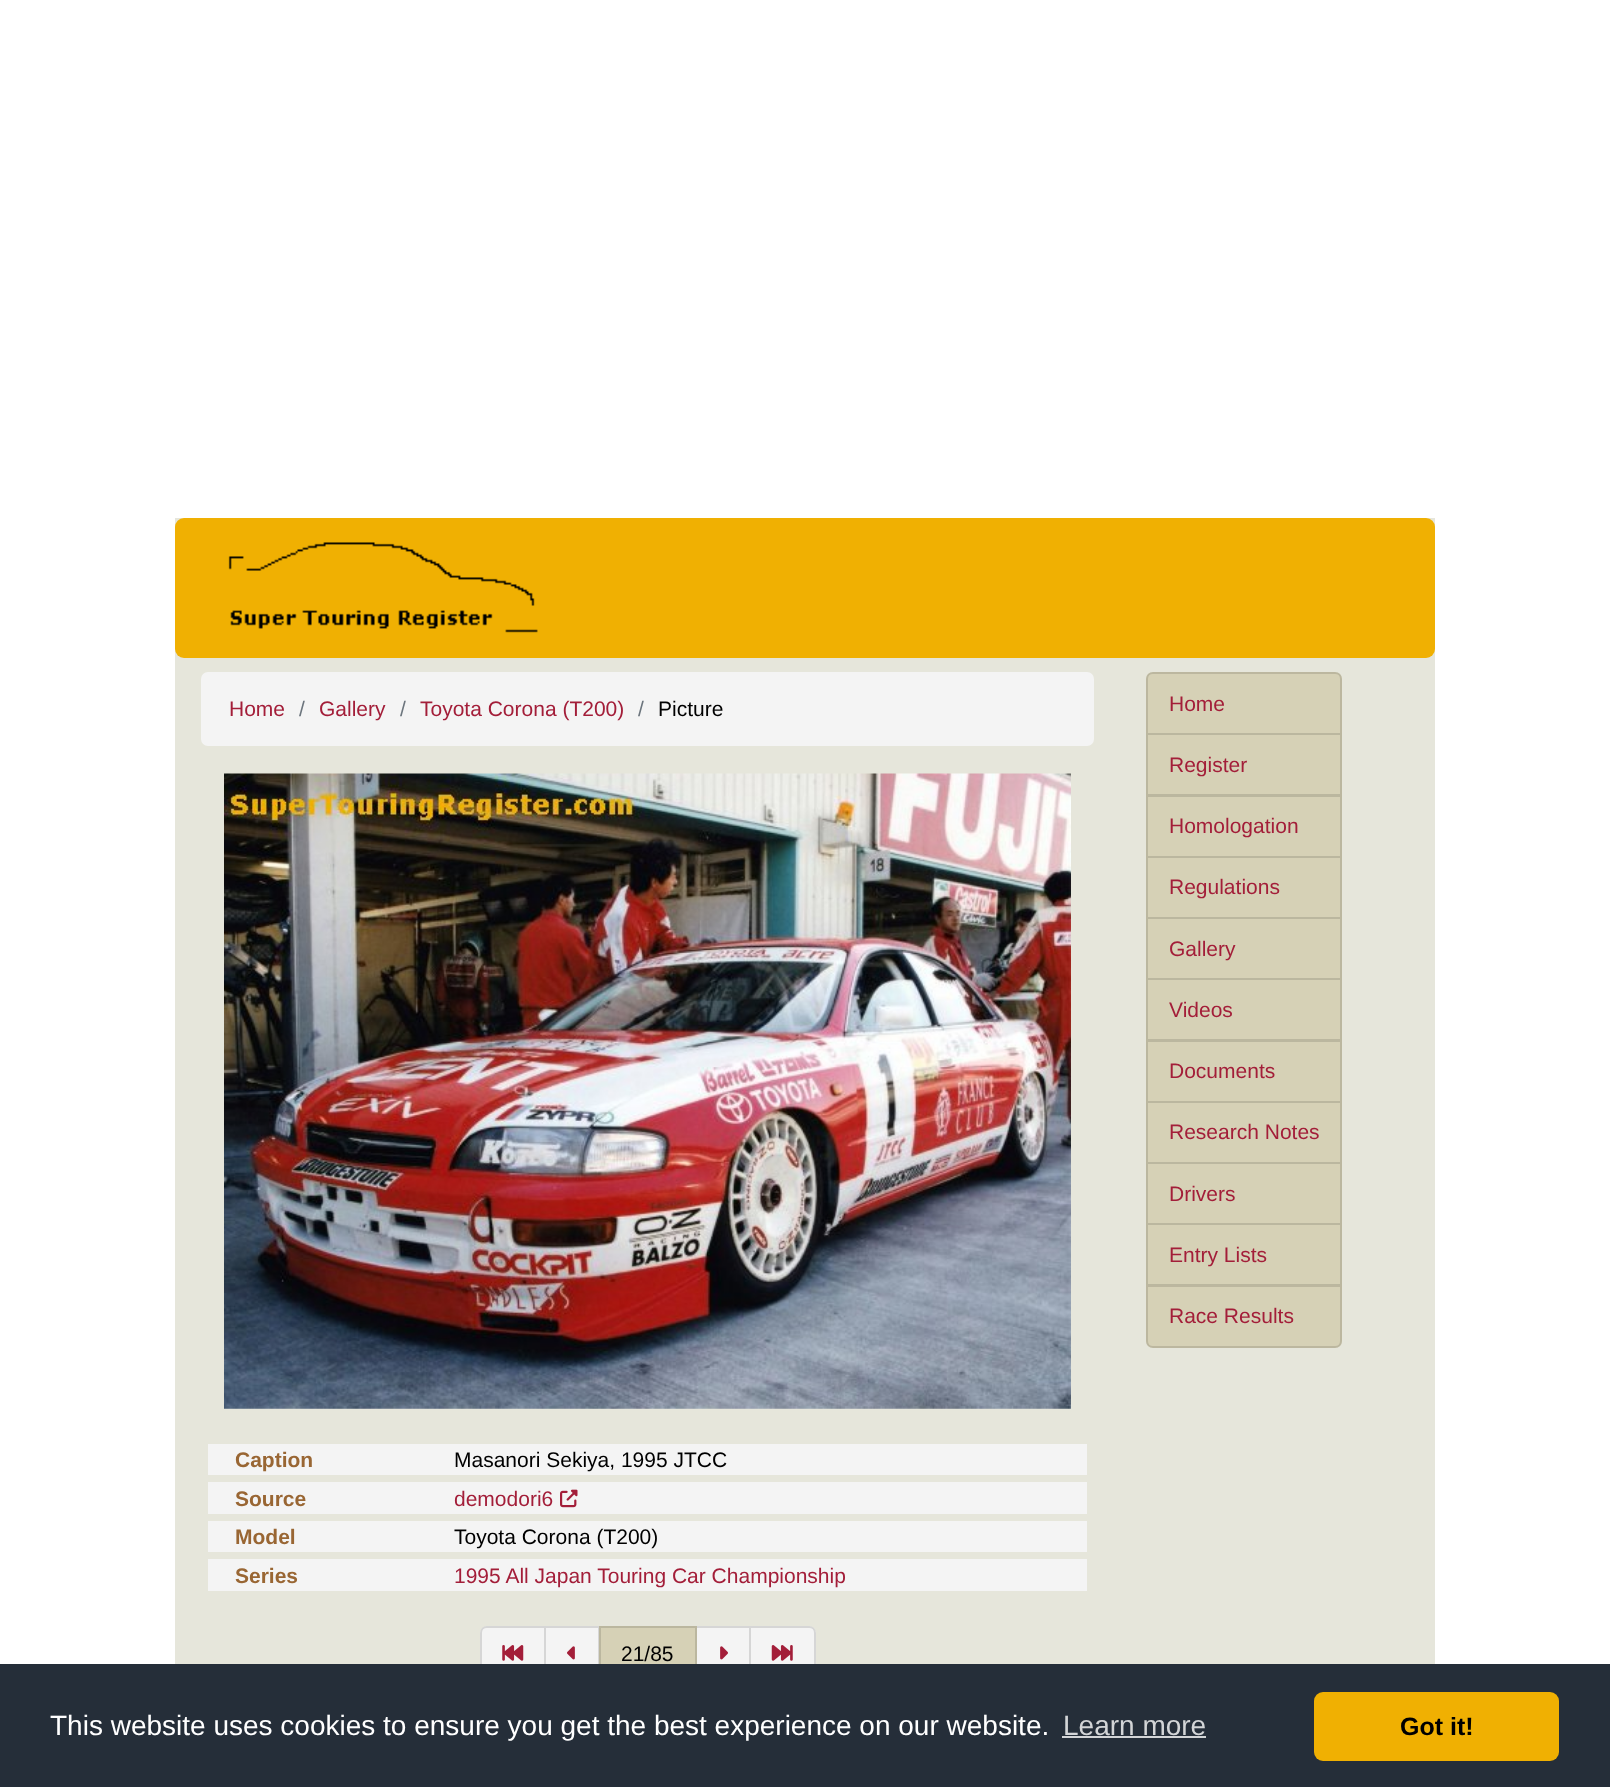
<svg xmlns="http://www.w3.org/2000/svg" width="1610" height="1787">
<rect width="100%" height="100%" fill="#fff"/>
<rect x="175" y="518" width="1260" height="1146" fill="#e6e6db"/>
<rect x="175" y="518" width="1260" height="140" rx="9" fill="#f0b002"/>
<image x="228" y="542" width="310" height="91" href="media/1.png"/>
<rect x="201" y="672" width="893" height="74" rx="7" fill="#f4f4f4"/>
<text x="229" y="716" style="font-family:Liberation Sans;font-size:21px;fill:#a31e39">Home</text>
<text x="299" y="716" style="font-family:Liberation Sans;font-size:21px;fill:#6c757d">/</text>
<text x="319" y="716" style="font-family:Liberation Sans;font-size:21px;fill:#a31e39">Gallery</text>
<text x="400" y="716" style="font-family:Liberation Sans;font-size:21px;fill:#6c757d">/</text>
<text x="420" y="716" style="font-family:Liberation Sans;font-size:21px;fill:#a31e39">Toyota Corona (T200)</text>
<text x="638" y="716" style="font-family:Liberation Sans;font-size:21px;fill:#6c757d">/</text>
<text x="658" y="716" style="font-family:Liberation Sans;font-size:21px;fill:#000">Picture</text>
<image x="224" y="773" width="847" height="636" href="media/2.png"/>
<rect x="208" y="1444" width="879" height="31" fill="#f4f4f4"/>
<text x="235" y="1467" style="font-family:Liberation Sans;font-size:21px;font-weight:bold;fill:#963">Caption</text>
<text x="454" y="1467" style="font-family:Liberation Sans;font-size:21px;fill:#000">Masanori Sekiya, 1995 JTCC</text>
<rect x="208" y="1482" width="879" height="32" fill="#f4f4f4"/>
<text x="235" y="1506" style="font-family:Liberation Sans;font-size:21px;font-weight:bold;fill:#963">Source</text>
<text x="454" y="1506" style="font-family:Liberation Sans;font-size:21px;fill:#a31e39">demodori6</text>
<image x="560" y="1489" width="18" height="19" href="media/3.png"/>
<rect x="208" y="1521" width="879" height="31" fill="#f4f4f4"/>
<text x="235" y="1544" style="font-family:Liberation Sans;font-size:21px;font-weight:bold;fill:#963">Model</text>
<text x="454" y="1544" style="font-family:Liberation Sans;font-size:21px;fill:#000">Toyota Corona (T200)</text>
<rect x="208" y="1559" width="879" height="32" fill="#f4f4f4"/>
<text x="235" y="1583" style="font-family:Liberation Sans;font-size:21px;font-weight:bold;fill:#963">Series</text>
<text x="454" y="1583" style="font-family:Liberation Sans;font-size:21px;fill:#a31e39">1995 All Japan Touring Car Championship</text>
<path d="M487 1626h59v58h-59c-4 0-7-3-7-7v-44c0-4 3-7 7-7z" fill="#f4f4f4"/>
<path d="M487 1627h58v56h-58c-3.5 0-6-2.5-6-6v-44c0-3.5 2.5-6 6-6z" fill="none" stroke="#0000001f" stroke-width="2"/>
<image x="502" y="1645" width="22" height="16" href="media/4.png"/>
<rect x="546" y="1628" width="52" height="36" fill="#f4f4f4"/>
<rect x="545" y="1627" width="54" height="56" fill="none" stroke="#d6d6d6" stroke-width="2"/>
<image x="567" y="1646" width="8" height="14" href="media/5.png"/>
<rect x="601" y="1628" width="94" height="36" fill="#d6d1b6"/>
<rect x="697" y="1628" width="52" height="36" fill="#f4f4f4"/>
<rect x="696" y="1627" width="54" height="56" fill="none" stroke="#d6d6d6" stroke-width="2"/>
<rect x="600" y="1627" width="96" height="56" fill="none" stroke="#bbb79f" stroke-width="2"/>
<text x="621" y="1661" style="font-family:Liberation Sans;font-size:21px;fill:#000">21/85</text>
<image x="720" y="1646" width="8" height="14" href="media/6.png"/>
<path d="M749 1626h60c4 0 7 3 7 7v44c0 4-3 7-7 7h-60z" fill="#f4f4f4"/>
<path d="M750 1627h59c3.5 0 6 2.5 6 6v44c0 3.5-2.5 6-6 6h-59z" fill="none" stroke="#0000001f" stroke-width="2"/>
<image x="771" y="1645" width="22" height="16" href="media/7.png"/>
<path d="M1153 672h182c4 0 7 3 7 7v56h-196v-56c0-4 3-7 7-7z" fill="#d6d1b6"/>
<path d="M1153 673h182c3.5 0 6 2.5 6 6v55h-194v-55c0-3.5 2.5-6 6-6z" fill="none" stroke="#0000001f" stroke-width="2"/>
<text x="1169" y="711" style="font-family:Liberation Sans;font-size:21px;fill:#a31e39">Home</text>
<rect x="1147" y="734" width="194" height="61" fill="#d6d1b6" stroke="#bbb79f" stroke-width="2"/>
<text x="1169" y="772" style="font-family:Liberation Sans;font-size:21px;fill:#a31e39">Register</text>
<rect x="1147" y="796" width="194" height="61" fill="#d6d1b6" stroke="#bbb79f" stroke-width="2"/>
<text x="1169" y="833" style="font-family:Liberation Sans;font-size:21px;fill:#a31e39">Homologation</text>
<rect x="1147" y="857" width="194" height="61" fill="#d6d1b6" stroke="#bbb79f" stroke-width="2"/>
<text x="1169" y="894" style="font-family:Liberation Sans;font-size:21px;fill:#a31e39">Regulations</text>
<rect x="1147" y="918" width="194" height="61" fill="#d6d1b6" stroke="#bbb79f" stroke-width="2"/>
<text x="1169" y="956" style="font-family:Liberation Sans;font-size:21px;fill:#a31e39">Gallery</text>
<rect x="1147" y="979" width="194" height="61" fill="#d6d1b6" stroke="#bbb79f" stroke-width="2"/>
<text x="1169" y="1017" style="font-family:Liberation Sans;font-size:21px;fill:#a31e39">Videos</text>
<rect x="1147" y="1041" width="194" height="61" fill="#d6d1b6" stroke="#bbb79f" stroke-width="2"/>
<text x="1169" y="1078" style="font-family:Liberation Sans;font-size:21px;fill:#a31e39">Documents</text>
<rect x="1147" y="1102" width="194" height="61" fill="#d6d1b6" stroke="#bbb79f" stroke-width="2"/>
<text x="1169" y="1139" style="font-family:Liberation Sans;font-size:21px;fill:#a31e39">Research Notes</text>
<rect x="1147" y="1163" width="194" height="61" fill="#d6d1b6" stroke="#bbb79f" stroke-width="2"/>
<text x="1169" y="1201" style="font-family:Liberation Sans;font-size:21px;fill:#a31e39">Drivers</text>
<rect x="1147" y="1224" width="194" height="61" fill="#d6d1b6" stroke="#bbb79f" stroke-width="2"/>
<text x="1169" y="1262" style="font-family:Liberation Sans;font-size:21px;fill:#a31e39">Entry Lists</text>
<path d="M1146 1285h196v56c0 4-3 7-7 7h-182c-4 0-7-3-7-7z" fill="#d6d1b6"/>
<path d="M1147 1286h194v55c0 3.5-2.5 6-6 6h-182c-3.5 0-6-2.5-6-6z" fill="none" stroke="#0000001f" stroke-width="2"/>
<text x="1169" y="1323" style="font-family:Liberation Sans;font-size:21px;fill:#a31e39">Race Results</text>
<rect y="1664" width="1610" height="123" fill="#252e39"/>
<text x="50" y="1735" style="font-family:Liberation Sans;font-size:28px;fill:#fff">This website uses cookies to ensure you get the best experience on our website.</text>
<text x="1063" y="1735" style="font-family:Liberation Sans;font-size:28px;fill:#d3d5d7">Learn more</text>
<rect x="1062" y="1736" width="144" height="2" fill="#d3d5d7"/>
<rect x="1314" y="1692" width="245" height="69" rx="9" fill="#f0b002"/>
<text x="1400" y="1735" style="font-family:Liberation Sans;font-size:25px;font-weight:bold;fill:#000">Got it!</text>
</svg>
